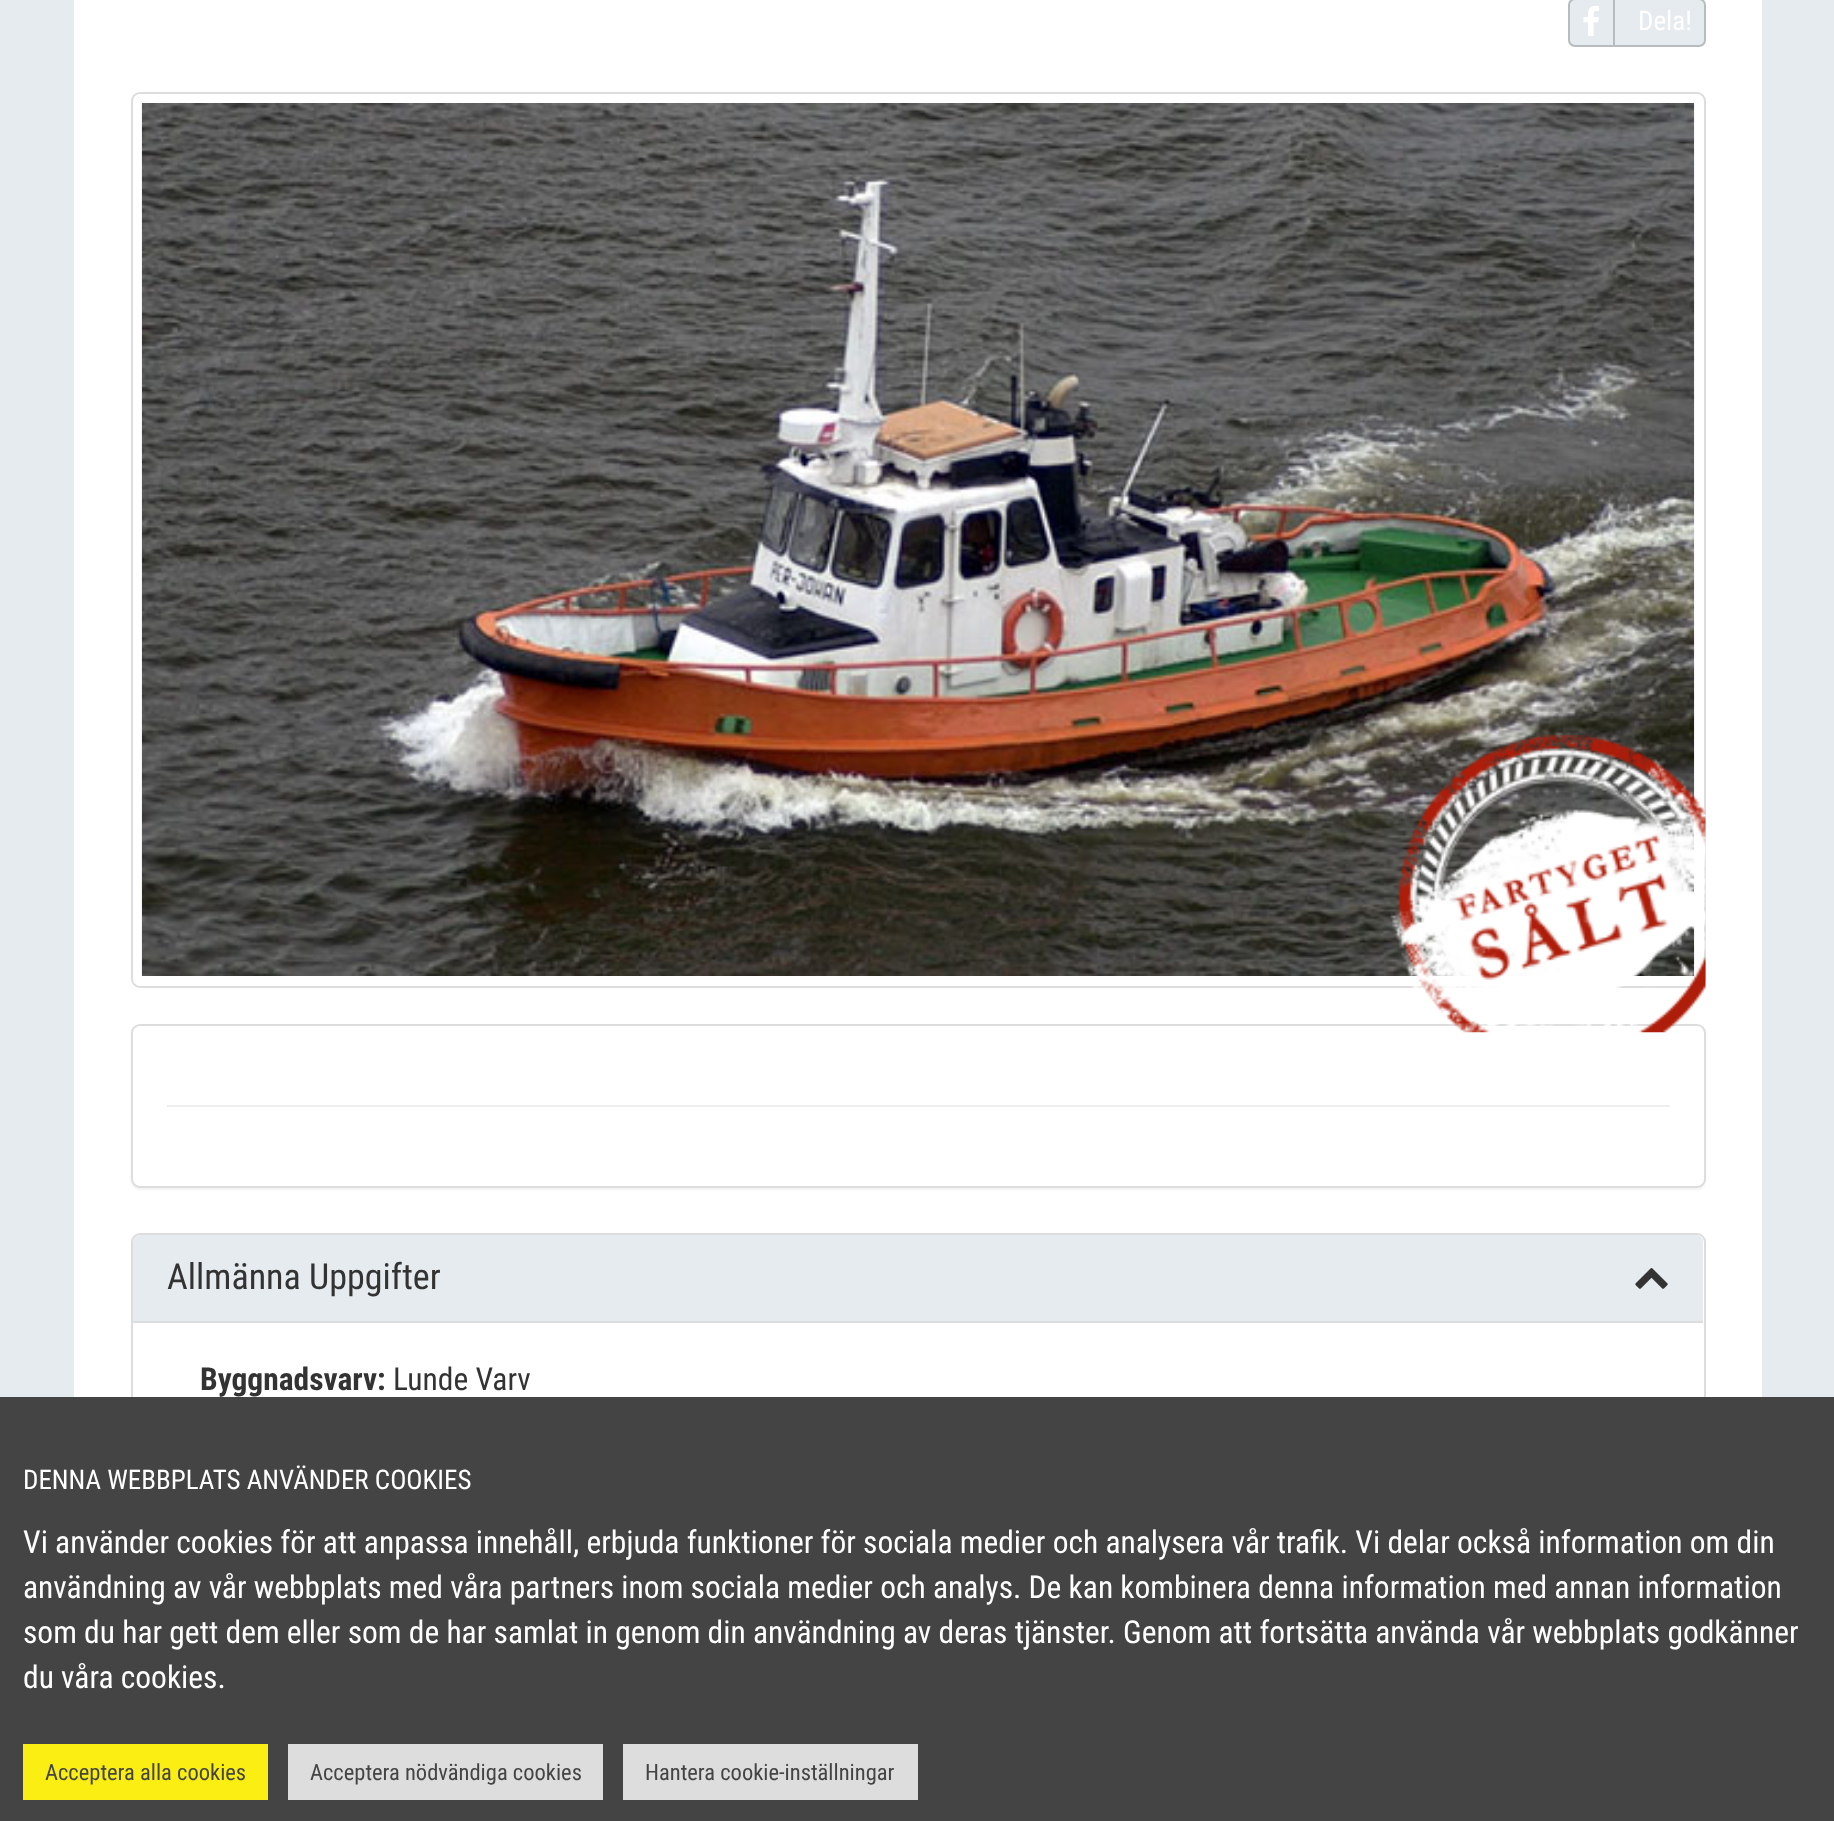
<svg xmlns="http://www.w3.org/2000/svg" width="1834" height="1821">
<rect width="100%" height="100%" fill="#e5ebee"/>
<rect x="74" width="1688" height="1397" fill="#fff"/>
<rect x="1568" y="-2" width="138" height="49" rx="7" fill="#e5ebee"/>
<rect x="1569" y="-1" width="136" height="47" rx="6" fill="none" stroke="#00000033" stroke-width="2"/>
<rect x="1613" width="2" height="45" fill="#b7bcbe"/>
<image x="1583" y="6" width="16" height="30" href="media/1.png"/>
<text x="1638" y="30" style="font-family:Roboto Condensed;font-size:27px;fill:#fff">Dela!</text>
<rect x="132" y="93" width="1573" height="894" rx="8" fill="none" stroke="#ddd" stroke-width="2"/>
<image x="141" y="103" width="1554" height="873" href="media/2.png"/>
<rect x="131" y="1026" width="1575" height="164" rx="9" fill="#0000000d" filter="blur(1px)"/>
<rect x="132" y="1025" width="1573" height="162" rx="8" fill="#fff" stroke="#ddd" stroke-width="2"/>
<image x="1390" y="735" width="316" height="298" href="media/3.png"/>
<rect x="167" y="1105" width="1503" height="2" fill="#eee"/>
<rect x="132" y="1234" width="1573" height="250" rx="8" fill="#fff" stroke="#ddd" stroke-width="2"/>
<path d="M140 1235h1556c4 0 7 3 7 7v79h-1570v-79c0-4 3-7 7-7z" fill="#e5ebee"/>
<text x="167" y="1289" style="font-family:Roboto Condensed;font-size:36px;fill:#333">Allmänna Uppgifter</text>
<image x="1635" y="1268" width="33" height="21" href="media/4.png"/>
<rect x="133" y="1321" width="1570" height="2" fill="#ddd"/>
<text x="200" y="1390" style="font-family:Roboto Condensed;font-size:31.5px;font-weight:bold;fill:#333">Byggnadsvarv:</text>
<text x="393" y="1390" style="font-family:Roboto Condensed;font-size:31.5px;fill:#333">Lunde Varv</text>
<rect y="1397" width="1834" height="424" fill="#444"/>
<text x="23" y="1489" style="font-family:Roboto Condensed;font-size:27px;fill:#fff">DENNA WEBBPLATS ANVÄNDER COOKIES</text>
<text x="23" y="1553" style="font-family:Roboto Condensed;font-size:31.5px;fill:#fff">Vi använder cookies för att anpassa innehåll, erbjuda funktioner för sociala medier och analysera vår trafik. Vi delar också information om din</text>
<text x="23" y="1598" style="font-family:Roboto Condensed;font-size:31.5px;fill:#fff">användning av vår webbplats med våra partners inom sociala medier och analys. De kan kombinera denna information med annan information</text>
<text x="23" y="1643" style="font-family:Roboto Condensed;font-size:31.5px;fill:#fff">som du har gett dem eller som de har samlat in genom din användning av deras tjänster. Genom att fortsätta använda vår webbplats godkänner</text>
<text x="23" y="1688" style="font-family:Roboto Condensed;font-size:31.5px;fill:#fff">du våra cookies.</text>
<rect x="23" y="1744" width="245" height="56" fill="#fbee12"/>
<text x="45" y="1780" style="font-family:Roboto Condensed;font-size:22.5px;fill:#444">Acceptera alla cookies</text>
<rect x="288" y="1744" width="315" height="56" fill="#ddd"/>
<text x="310" y="1780" style="font-family:Roboto Condensed;font-size:22.5px;fill:#444">Acceptera nödvändiga cookies</text>
<rect x="623" y="1744" width="295" height="56" fill="#ddd"/>
<text x="645" y="1780" style="font-family:Roboto Condensed;font-size:22.5px;fill:#444">Hantera cookie-inställningar</text>
</svg>
